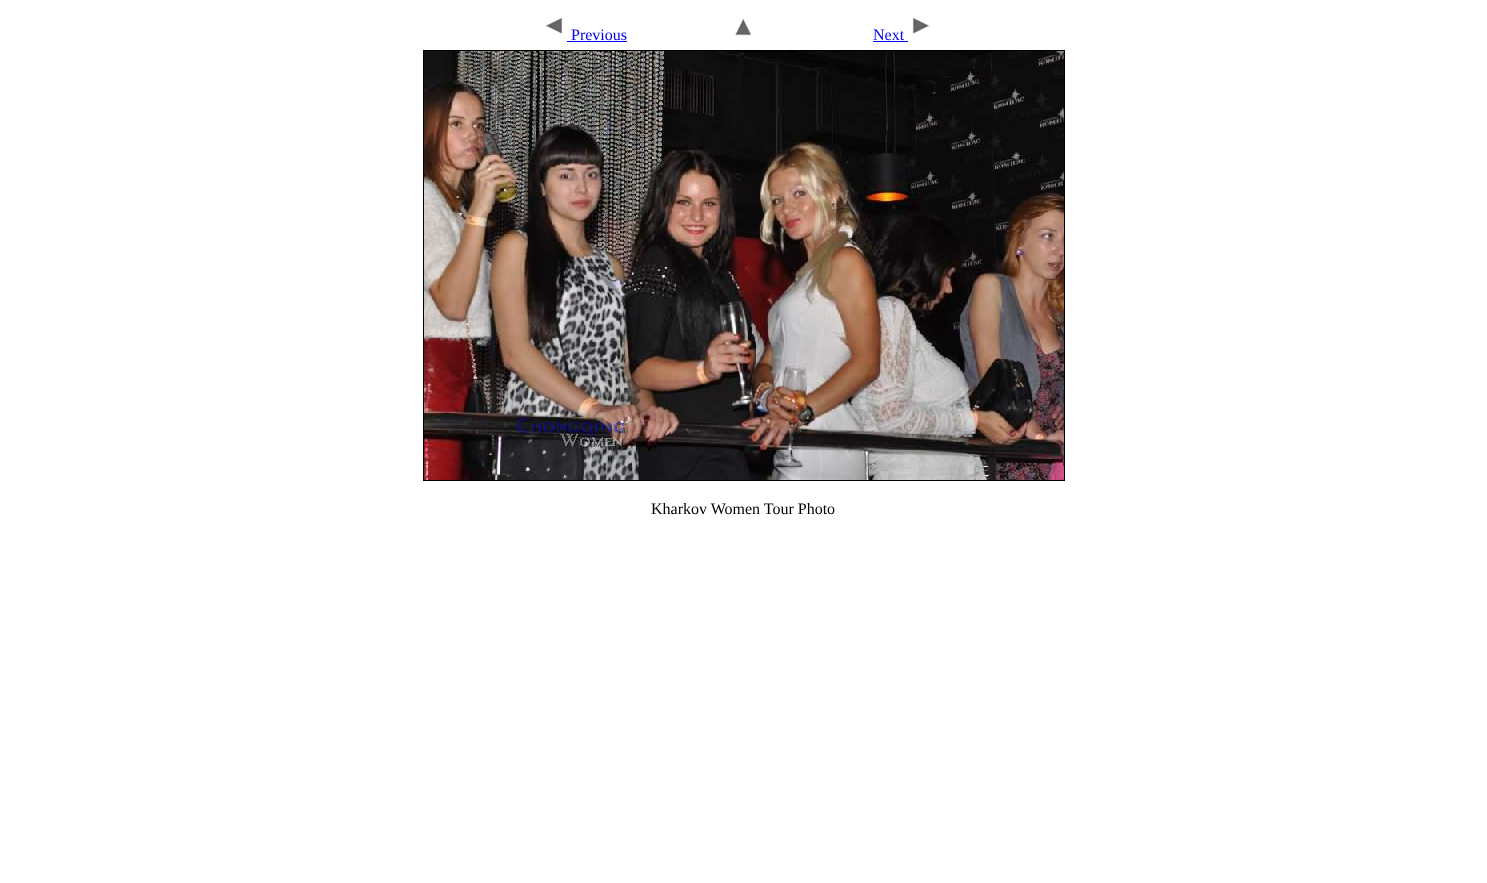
<svg xmlns="http://www.w3.org/2000/svg" width="1487" height="883">
<rect width="100%" height="100%" fill="#fff"/>
<image x="545" y="18" width="18" height="16" href="media/1.png"/>
<text x="571" y="40" style="font-family:Liberation Serif;font-size:16px;fill:#00e">Previous</text>
<rect x="567" y="41" width="60" height="1" fill="#00e"/>
<image x="735" y="18" width="16" height="18" href="media/2.png"/>
<text x="873" y="40" style="font-family:Liberation Serif;font-size:16px;fill:#00e">Next</text>
<rect x="873" y="41" width="35" height="1" fill="#00e"/>
<image x="912" y="18" width="18" height="16" href="media/3.png"/>
<rect x="423.5" y="50.5" width="641" height="430" fill="none" stroke="#000"/>
<image x="424" y="51" width="640" height="429" href="media/4.png"/>
<text x="651" y="514" style="font-family:Liberation Serif;font-size:16px;fill:#000">Kharkov Women Tour Photo</text>
</svg>
